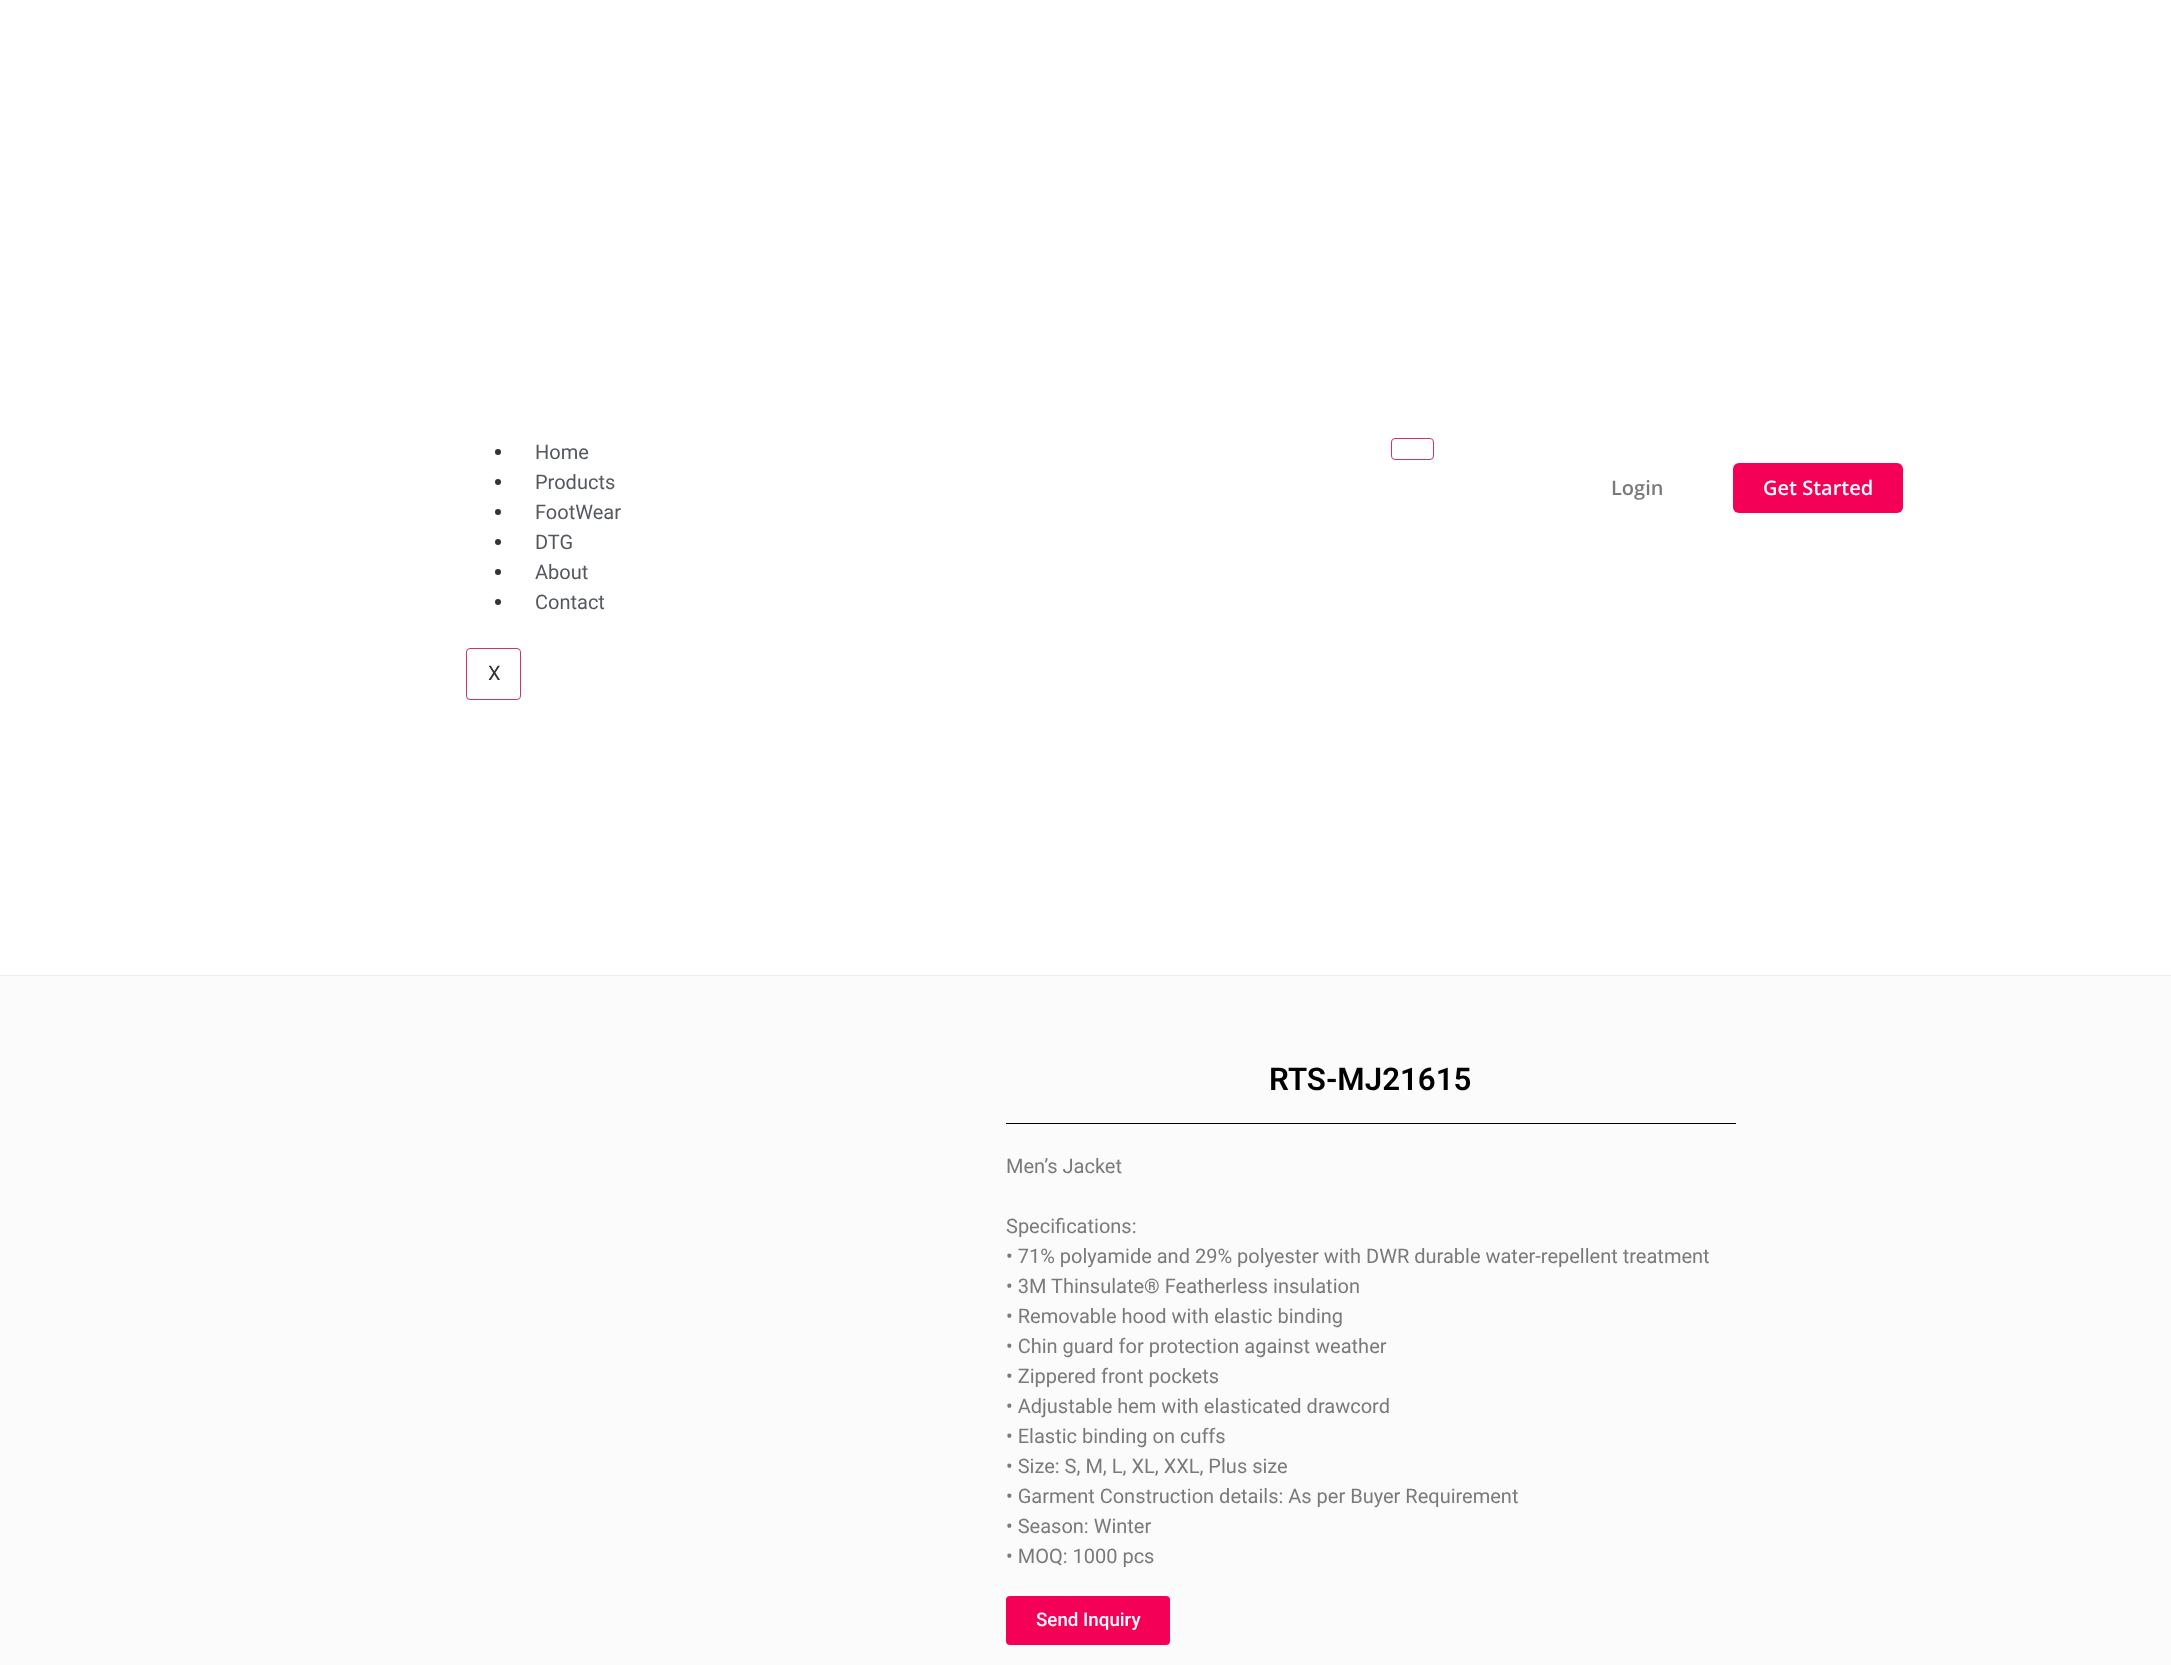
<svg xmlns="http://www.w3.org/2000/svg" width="2171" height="1665">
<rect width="100%" height="100%" fill="#fff"/>
<rect y="975" width="2171" height="1" fill="#ececec"/>
<circle cx="498" cy="452" r="3" fill="#333"/>
<text x="535" y="459" style="font-family:Roboto;font-size:20px;fill:#54595f">Home</text>
<circle cx="498" cy="482" r="3" fill="#333"/>
<text x="535" y="489" style="font-family:Roboto;font-size:20px;fill:#54595f">Products</text>
<circle cx="498" cy="512" r="3" fill="#333"/>
<text x="535" y="519" style="font-family:Roboto;font-size:20px;fill:#54595f">FootWear</text>
<circle cx="498" cy="542" r="3" fill="#333"/>
<text x="535" y="549" style="font-family:Roboto;font-size:20px;fill:#54595f">DTG</text>
<circle cx="498" cy="572" r="3" fill="#333"/>
<text x="535" y="579" style="font-family:Roboto;font-size:20px;fill:#54595f">About</text>
<circle cx="498" cy="602" r="3" fill="#333"/>
<text x="535" y="609" style="font-family:Roboto;font-size:20px;fill:#54595f">Contact</text>
<rect x="466.5" y="648.5" width="54" height="51" rx="3.5" fill="none" stroke="#c36"/>
<text x="488" y="680" style="font-family:Roboto;font-size:20px;fill:#333">X</text>
<rect x="1391.5" y="438.5" width="42" height="21" rx="3.5" fill="none" stroke="#c36"/>
<text x="1611" y="495" style="font-family:Open Sans;font-size:20px;font-weight:600;fill:#7a7a7a">Login</text>
<rect x="1733" y="463" width="170" height="50" rx="6" fill="#f50057"/>
<text x="1763" y="495" style="font-family:Open Sans;font-size:20px;font-weight:600;fill:#fff">Get Started</text>
<rect y="976" width="2171" height="689" fill="#fbfbfb"/>
<text x="1269" y="1090" style="font-family:Roboto;font-size:31.25px;font-weight:600;fill:#000">RTS-MJ21615</text>
<rect x="1006" y="1123" width="730" height="1" fill="#000"/>
<text x="1006" y="1173" style="font-family:Roboto;font-size:20px;fill:#7a7a7a">Men’s Jacket</text>
<text x="1006" y="1233" style="font-family:Roboto;font-size:20px;fill:#7a7a7a">Specifications:</text>
<text x="1006" y="1263" style="font-family:Roboto;font-size:20px;fill:#7a7a7a">• 71% polyamide and 29% polyester with DWR durable water-repellent treatment</text>
<text x="1006" y="1293" style="font-family:Roboto;font-size:20px;fill:#7a7a7a">• 3M Thinsulate® Featherless insulation</text>
<text x="1006" y="1323" style="font-family:Roboto;font-size:20px;fill:#7a7a7a">• Removable hood with elastic binding</text>
<text x="1006" y="1353" style="font-family:Roboto;font-size:20px;fill:#7a7a7a">• Chin guard for protection against weather</text>
<text x="1006" y="1383" style="font-family:Roboto;font-size:20px;fill:#7a7a7a">• Zippered front pockets</text>
<text x="1006" y="1413" style="font-family:Roboto;font-size:20px;fill:#7a7a7a">• Adjustable hem with elasticated drawcord</text>
<text x="1006" y="1443" style="font-family:Roboto;font-size:20px;fill:#7a7a7a">• Elastic binding on cuffs</text>
<text x="1006" y="1473" style="font-family:Roboto;font-size:20px;fill:#7a7a7a">• Size: S, M, L, XL, XXL, Plus size</text>
<text x="1006" y="1503" style="font-family:Roboto;font-size:20px;fill:#7a7a7a">• Garment Construction details: As per Buyer Requirement</text>
<text x="1006" y="1533" style="font-family:Roboto;font-size:20px;fill:#7a7a7a">• Season: Winter</text>
<text x="1006" y="1563" style="font-family:Roboto;font-size:20px;fill:#7a7a7a">• MOQ: 1000 pcs</text>
<rect x="1006" y="1596" width="164" height="49" rx="4" fill="#f50057"/>
<text x="1036" y="1626" style="font-family:Roboto;font-size:18.75px;font-weight:500;fill:#fff">Send Inquiry</text>
</svg>
